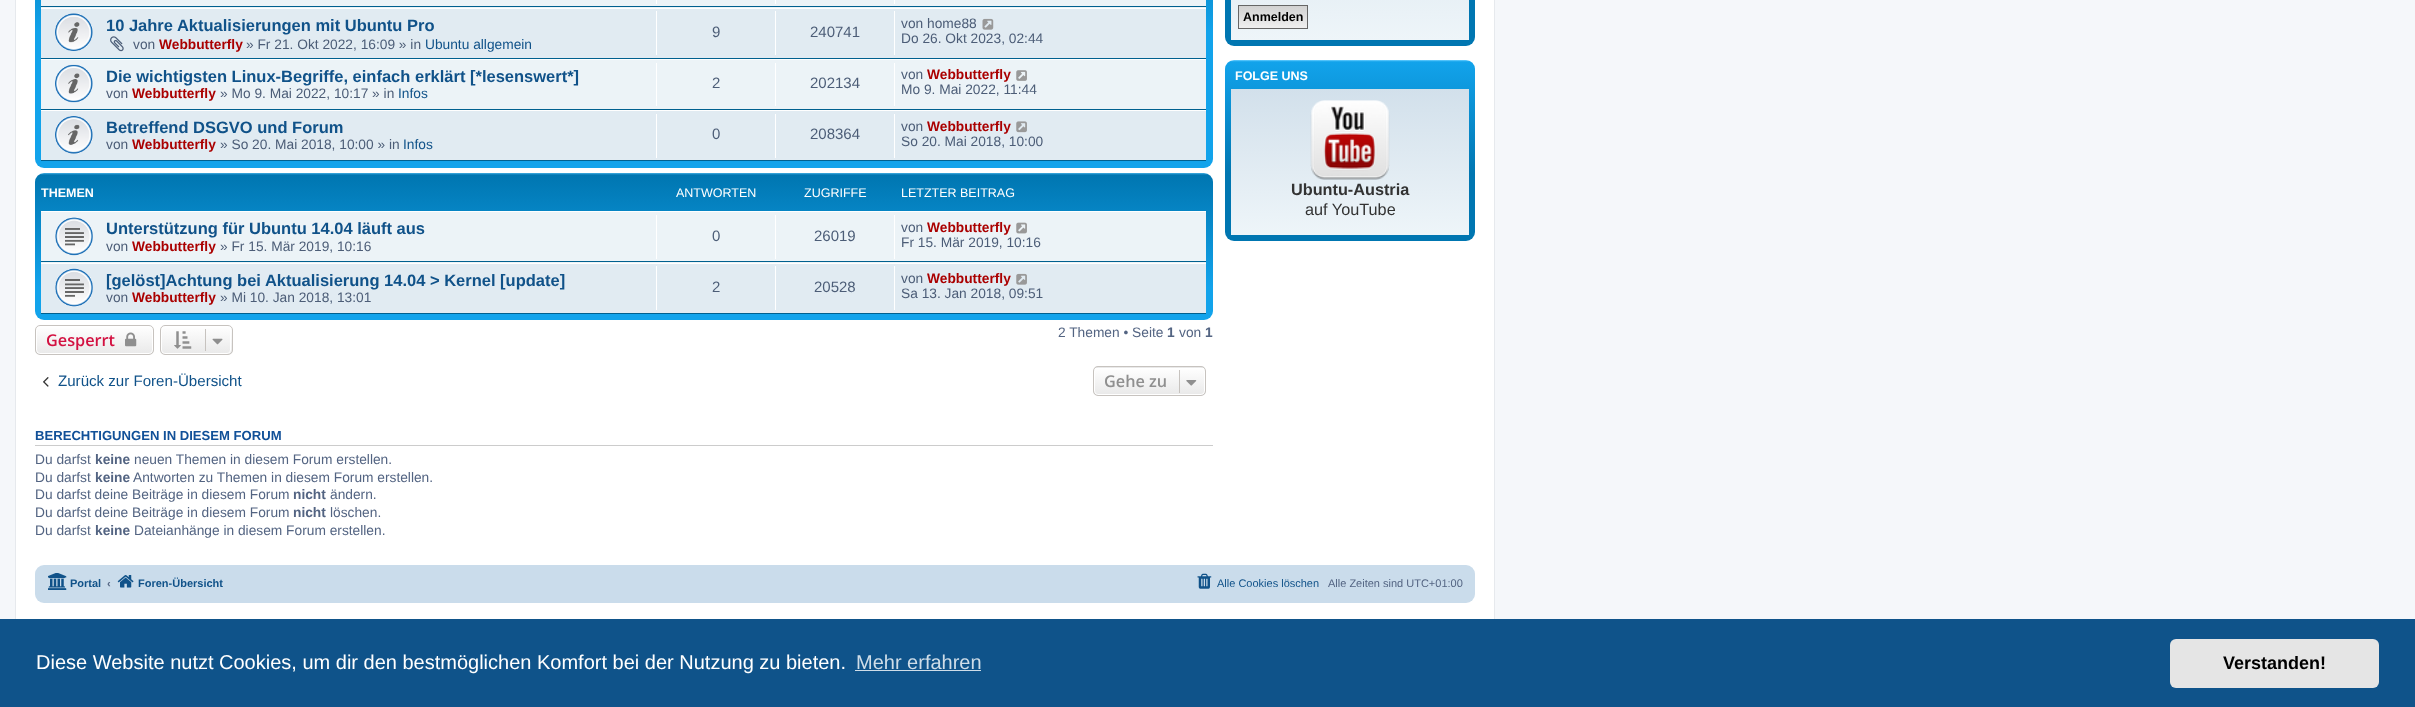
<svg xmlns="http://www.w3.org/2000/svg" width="2415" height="707">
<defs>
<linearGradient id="g1" gradientUnits="userSpaceOnUse" x1="624" y1="-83" x2="624" y2="168"><stop offset="0" stop-color="#6aceff"/><stop offset="0.01" stop-color="#0076b1"/><stop offset="0.46" stop-color="#12a3eb"/><stop offset="1" stop-color="#12a3eb"/></linearGradient>
<linearGradient id="g2" gradientUnits="userSpaceOnUse" x1="624" y1="172" x2="624" y2="320"><stop offset="0" stop-color="#6aceff"/><stop offset="0.02" stop-color="#0076b1"/><stop offset="0.78" stop-color="#12a3eb"/><stop offset="1" stop-color="#12a3eb"/></linearGradient>
<clipPath id="clip1"><rect x="160" y="325" width="73" height="30" rx="5"/></clipPath>
<linearGradient id="g3" gradientUnits="userSpaceOnUse" x1="196" y1="326" x2="196" y2="354"><stop offset="0" stop-color="#fff"/><stop offset="1" stop-color="#e9e9e9"/></linearGradient>
<clipPath id="clip2"><rect x="35" y="325" width="119" height="30" rx="5"/></clipPath>
<linearGradient id="g4" gradientUnits="userSpaceOnUse" x1="94" y1="326" x2="94" y2="354"><stop offset="0" stop-color="#fff"/><stop offset="1" stop-color="#e9e9e9"/></linearGradient>
<clipPath id="clip3"><rect x="1093" y="366" width="113" height="30" rx="5"/></clipPath>
<linearGradient id="g5" gradientUnits="userSpaceOnUse" x1="1149" y1="340" x2="1149" y2="368"><stop offset="0" stop-color="#fff"/><stop offset="1" stop-color="#e9e9e9"/></linearGradient>
<linearGradient id="g6" gradientUnits="userSpaceOnUse" x1="1149" y1="368" x2="1149" y2="395"><stop offset="0" stop-color="#fff"/><stop offset="1" stop-color="#e9e9e9"/></linearGradient>
<linearGradient id="g7" gradientUnits="userSpaceOnUse" x1="1350" y1="-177" x2="1350" y2="46"><stop offset="0" stop-color="#6aceff"/><stop offset="0.01" stop-color="#12a3eb"/><stop offset="0.51" stop-color="#0076b1"/><stop offset="1" stop-color="#0076b1"/></linearGradient>
<linearGradient id="g8" gradientUnits="userSpaceOnUse" x1="1350" y1="-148" x2="1350" y2="40"><stop offset="0" stop-color="#d2e0eb"/><stop offset="1" stop-color="#eef5f9"/></linearGradient>
<linearGradient id="g9" gradientUnits="userSpaceOnUse" x1="1273" y1="6.2" x2="1273" y2="28"><stop offset="0" stop-color="#d2d2d2"/><stop offset="1" stop-color="#efefef"/></linearGradient>
<linearGradient id="g10" gradientUnits="userSpaceOnUse" x1="1350" y1="60" x2="1350" y2="241"><stop offset="0" stop-color="#6aceff"/><stop offset="0.01" stop-color="#12a3eb"/><stop offset="0.63" stop-color="#0076b1"/><stop offset="1" stop-color="#0076b1"/></linearGradient>
<linearGradient id="g11" gradientUnits="userSpaceOnUse" x1="1350" y1="89" x2="1350" y2="235"><stop offset="0" stop-color="#d2e0eb"/><stop offset="1" stop-color="#eef5f9"/></linearGradient>
</defs>
<rect width="100%" height="100%" fill="#f5f7fa"/>
<rect x="16" width="1478" height="619" fill="#fff"/>
<rect x="15.5" y="-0.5" width="1479" height="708" fill="none" stroke="#e6e9ed"/>
<rect x="35" y="-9" width="1178" height="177" rx="9" fill="url(#g1)"/>
<rect x="41" width="1165" height="8" fill="#ecf3f7"/>
<rect x="41" y="6" width="1165" height="1" fill="#00608f"/>
<rect x="656" width="1" height="4" fill="#fff"/>
<rect x="775" width="1" height="4" fill="#fff"/>
<rect x="894" width="1" height="4" fill="#fff"/>
<rect x="41" y="9" width="1165" height="49" fill="#e1ebf2"/>
<rect x="41" y="8" width="1165" height="1" fill="#fff"/>
<rect x="41" y="58" width="1165" height="1" fill="#00608f"/>
<image x="55" y="13" width="38" height="38" href="media/1.png"/>
<text x="106" y="31" style="font-family:Liberation Sans;font-size:16.5px;font-weight:bold;fill:#105289">10 Jahre Aktualisierungen mit Ubuntu Pro</text>
<image x="110" y="36" width="14" height="16" href="media/2.png"/>
<text x="133" y="49" style="font-family:Liberation Sans;font-size:13.75px;fill:#4c5d77">von</text>
<text x="159" y="49" style="font-family:Liberation Sans;font-size:13.75px;font-weight:bold;fill:#a00">Webbutterfly</text>
<text x="246" y="49" style="font-family:Liberation Sans;font-size:13.75px;fill:#4c5d77">» Fr 21. Okt 2022, 16:09 » in</text>
<text x="425" y="49" style="font-family:Liberation Sans;font-size:13.75px;fill:#105289">Ubuntu allgemein</text>
<rect x="656" y="11" width="1" height="44" fill="#fff"/>
<text x="712" y="37" style="font-family:Liberation Sans;font-size:15px;fill:#4c5d77">9</text>
<rect x="775" y="11" width="1" height="44" fill="#fff"/>
<text x="810" y="37" style="font-family:Liberation Sans;font-size:15px;fill:#4c5d77">240741</text>
<rect x="894" y="11" width="1" height="44" fill="#fff"/>
<text x="901" y="28" style="font-family:Liberation Sans;font-size:13.75px;fill:#4c5d77">von home88</text>
<image x="982" y="18" width="12" height="12" href="media/3.png"/>
<text x="901" y="43" style="font-family:Liberation Sans;font-size:13.75px;fill:#4c5d77">Do 26. Okt 2023, 02:44</text>
<rect x="41" y="60" width="1165" height="49" fill="#ecf3f7"/>
<rect x="41" y="59" width="1165" height="1" fill="#fff"/>
<rect x="41" y="109" width="1165" height="1" fill="#00608f"/>
<image x="55" y="64" width="38" height="39" href="media/4.png"/>
<text x="106" y="82" style="font-family:Liberation Sans;font-size:16.5px;font-weight:bold;fill:#105289">Die wichtigsten Linux-Begriffe, einfach erklärt [*lesenswert*]</text>
<text x="106" y="98" style="font-family:Liberation Sans;font-size:13.75px;fill:#4c5d77">von</text>
<text x="132" y="98" style="font-family:Liberation Sans;font-size:13.75px;font-weight:bold;fill:#a00">Webbutterfly</text>
<text x="220" y="98" style="font-family:Liberation Sans;font-size:13.75px;fill:#4c5d77">» Mo 9. Mai 2022, 10:17 » in</text>
<text x="398" y="98" style="font-family:Liberation Sans;font-size:13.75px;fill:#105289">Infos</text>
<rect x="656" y="63" width="1" height="43" fill="#fff"/>
<text x="712" y="88" style="font-family:Liberation Sans;font-size:15px;fill:#4c5d77">2</text>
<rect x="775" y="63" width="1" height="43" fill="#fff"/>
<text x="810" y="88" style="font-family:Liberation Sans;font-size:15px;fill:#4c5d77">202134</text>
<rect x="894" y="63" width="1" height="43" fill="#fff"/>
<text x="901" y="79" style="font-family:Liberation Sans;font-size:13.75px;fill:#4c5d77">von</text>
<text x="927" y="79" style="font-family:Liberation Sans;font-size:13.75px;font-weight:bold;fill:#a00">Webbutterfly</text>
<image x="1016" y="70" width="11" height="11" href="media/5.png"/>
<text x="901" y="94" style="font-family:Liberation Sans;font-size:13.75px;fill:#4c5d77">Mo 9. Mai 2022, 11:44</text>
<rect x="41" y="111" width="1165" height="49" fill="#e1ebf2"/>
<rect x="41" y="110" width="1165" height="1" fill="#fff"/>
<rect x="41" y="160" width="1165" height="1" fill="#00608f"/>
<image x="55" y="116" width="38" height="38" href="media/6.png"/>
<text x="106" y="133" style="font-family:Liberation Sans;font-size:16.5px;font-weight:bold;fill:#105289">Betreffend DSGVO und Forum</text>
<text x="106" y="149" style="font-family:Liberation Sans;font-size:13.75px;fill:#4c5d77">von</text>
<text x="132" y="149" style="font-family:Liberation Sans;font-size:13.75px;font-weight:bold;fill:#a00">Webbutterfly</text>
<text x="220" y="149" style="font-family:Liberation Sans;font-size:13.75px;fill:#4c5d77">» So 20. Mai 2018, 10:00 » in</text>
<text x="403" y="149" style="font-family:Liberation Sans;font-size:13.75px;fill:#105289">Infos</text>
<rect x="656" y="114" width="1" height="44" fill="#fff"/>
<text x="712" y="139" style="font-family:Liberation Sans;font-size:15px;fill:#4c5d77">0</text>
<rect x="775" y="114" width="1" height="44" fill="#fff"/>
<text x="810" y="139" style="font-family:Liberation Sans;font-size:15px;fill:#4c5d77">208364</text>
<rect x="894" y="114" width="1" height="44" fill="#fff"/>
<text x="901" y="131" style="font-family:Liberation Sans;font-size:13.75px;fill:#4c5d77">von</text>
<text x="927" y="131" style="font-family:Liberation Sans;font-size:13.75px;font-weight:bold;fill:#a00">Webbutterfly</text>
<image x="1016" y="121" width="11" height="12" href="media/7.png"/>
<text x="901" y="146" style="font-family:Liberation Sans;font-size:13.75px;fill:#4c5d77">So 20. Mai 2018, 10:00</text>
<rect x="35" y="173" width="1178" height="147" rx="9" fill="url(#g2)"/>
<text x="41" y="197" style="font-family:Liberation Sans;font-size:12.5px;font-weight:bold;fill:#fff">THEMEN</text>
<text x="676" y="197" style="font-family:Liberation Sans;font-size:12.5px;fill:#fff">ANTWORTEN</text>
<text x="804" y="197" style="font-family:Liberation Sans;font-size:12.5px;fill:#fff">ZUGRIFFE</text>
<text x="901" y="197" style="font-family:Liberation Sans;font-size:12.5px;fill:#fff">LETZTER BEITRAG</text>
<rect x="41" y="212" width="1165" height="51" fill="#ecf3f7"/>
<rect x="41" y="211" width="1165" height="1" fill="#fff"/>
<rect x="41" y="261" width="1165" height="1" fill="#00608f"/>
<image x="55" y="217" width="38" height="39" href="media/8.png"/>
<text x="106" y="234" style="font-family:Liberation Sans;font-size:16.5px;font-weight:bold;fill:#105289">Unterstützung für Ubuntu 14.04 läuft aus</text>
<text x="106" y="251" style="font-family:Liberation Sans;font-size:13.75px;fill:#4c5d77">von</text>
<text x="132" y="251" style="font-family:Liberation Sans;font-size:13.75px;font-weight:bold;fill:#a00">Webbutterfly</text>
<text x="220" y="251" style="font-family:Liberation Sans;font-size:13.75px;fill:#4c5d77">» Fr 15. Mär 2019, 10:16</text>
<rect x="656" y="215" width="1" height="44" fill="#fff"/>
<text x="712" y="241" style="font-family:Liberation Sans;font-size:15px;fill:#4c5d77">0</text>
<rect x="775" y="215" width="1" height="44" fill="#fff"/>
<text x="814" y="241" style="font-family:Liberation Sans;font-size:15px;fill:#4c5d77">26019</text>
<rect x="894" y="215" width="1" height="44" fill="#fff"/>
<text x="901" y="232" style="font-family:Liberation Sans;font-size:13.75px;fill:#4c5d77">von</text>
<text x="927" y="232" style="font-family:Liberation Sans;font-size:13.75px;font-weight:bold;fill:#a00">Webbutterfly</text>
<image x="1016" y="222" width="11" height="12" href="media/9.png"/>
<text x="901" y="247" style="font-family:Liberation Sans;font-size:13.75px;fill:#4c5d77">Fr 15. Mär 2019, 10:16</text>
<rect x="41" y="264" width="1165" height="49" fill="#e1ebf2"/>
<rect x="41" y="263" width="1165" height="1" fill="#fff"/>
<rect x="41" y="313" width="1165" height="1" fill="#00608f"/>
<image x="55" y="268" width="38" height="39" href="media/10.png"/>
<text x="106" y="286" style="font-family:Liberation Sans;font-size:16.5px;font-weight:bold;fill:#105289">[gelöst]Achtung bei Aktualisierung 14.04 &gt; Kernel [update]</text>
<text x="106" y="302" style="font-family:Liberation Sans;font-size:13.75px;fill:#4c5d77">von</text>
<text x="132" y="302" style="font-family:Liberation Sans;font-size:13.75px;font-weight:bold;fill:#a00">Webbutterfly</text>
<text x="220" y="302" style="font-family:Liberation Sans;font-size:13.75px;fill:#4c5d77">» Mi 10. Jan 2018, 13:01</text>
<rect x="656" y="266" width="1" height="44" fill="#fff"/>
<text x="712" y="292" style="font-family:Liberation Sans;font-size:15px;fill:#4c5d77">2</text>
<rect x="775" y="266" width="1" height="44" fill="#fff"/>
<text x="814" y="292" style="font-family:Liberation Sans;font-size:15px;fill:#4c5d77">20528</text>
<rect x="894" y="266" width="1" height="44" fill="#fff"/>
<text x="901" y="283" style="font-family:Liberation Sans;font-size:13.75px;fill:#4c5d77">von</text>
<text x="927" y="283" style="font-family:Liberation Sans;font-size:13.75px;font-weight:bold;fill:#a00">Webbutterfly</text>
<image x="1016" y="273" width="11" height="12" href="media/11.png"/>
<text x="901" y="298" style="font-family:Liberation Sans;font-size:13.75px;fill:#4c5d77">Sa 13. Jan 2018, 09:51</text>
<g clip-path="url(#clip1)">
<rect x="160" y="326" width="73" height="28" fill="url(#g3)"/>
</g>
<rect x="161.5" y="326.5" width="69" height="27" rx="3.5" fill="none" stroke="#fff"/>
<rect x="160.5" y="325.5" width="72" height="29" rx="4.5" fill="none" stroke="#c7c3bf"/>
<image x="174" y="331" width="18" height="18" href="media/12.png"/>
<rect x="205" y="329" width="1" height="22" fill="#c7c3bf"/>
<image x="212" y="338" width="11" height="7" href="media/13.png"/>
<text x="1058" y="337" style="font-family:Liberation Sans;font-size:13.75px;fill:#536482">2 Themen • Seite</text>
<text x="1167" y="337" style="font-family:Liberation Sans;font-size:13.75px;font-weight:bold;fill:#536482">1</text>
<text x="1179" y="337" style="font-family:Liberation Sans;font-size:13.75px;fill:#536482">von</text>
<text x="1205" y="337" style="font-family:Liberation Sans;font-size:13.75px;font-weight:bold;fill:#536482">1</text>
<g clip-path="url(#clip2)">
<rect x="35" y="326" width="119" height="28" fill="url(#g4)"/>
</g>
<rect x="36.5" y="326.5" width="116" height="27" rx="3.5" fill="none" stroke="#fff"/>
<rect x="35.5" y="325.5" width="118" height="29" rx="4.5" fill="none" stroke="#c7c3bf"/>
<text x="46" y="346" style="font-family:Open Sans;font-size:16.25px;font-weight:600;fill:#d31141">Gesperrt</text>
<image x="125" y="332" width="12" height="15" href="media/14.png"/>
<image x="43" y="377" width="6" height="10" href="media/15.png"/>
<text x="58" y="386" style="font-family:Liberation Sans;font-size:15.1px;fill:#105289">Zurück zur Foren-Übersicht</text>
<g clip-path="url(#clip3)">
<rect x="1093" y="366" width="113" height="2" fill="url(#g5)"/>
<rect x="1093" y="368" width="113" height="27" fill="url(#g6)"/>
</g>
<rect x="1094.5" y="368.5" width="110" height="26" rx="3.5" fill="none" stroke="#fff"/>
<rect x="1093.5" y="366.5" width="112" height="29" rx="4.5" fill="none" stroke="#c7c3bf"/>
<text x="1104" y="387" style="font-family:Open Sans;font-size:16.25px;font-weight:600;fill:#8f8f8f">Gehe zu</text>
<rect x="1179" y="370" width="1" height="23" fill="#c7c3bf"/>
<image x="1186" y="380" width="11" height="6" href="media/16.png"/>
<rect x="35" y="445" width="1178" height="1" fill="#ccc"/>
<text x="35" y="440" style="font-family:Liberation Sans;font-size:13.1px;font-weight:bold;fill:#115098">BERECHTIGUNGEN IN DIESEM FORUM</text>
<text x="35" y="464" style="font-family:Liberation Sans;font-size:13.75px;fill:#536482">Du darfst</text>
<text x="95" y="464" style="font-family:Liberation Sans;font-size:13.75px;font-weight:bold;fill:#536482">keine</text>
<text x="134" y="464" style="font-family:Liberation Sans;font-size:13.75px;fill:#536482">neuen Themen in diesem Forum erstellen.</text>
<text x="35" y="482" style="font-family:Liberation Sans;font-size:13.75px;fill:#536482">Du darfst</text>
<text x="95" y="482" style="font-family:Liberation Sans;font-size:13.75px;font-weight:bold;fill:#536482">keine</text>
<text x="133" y="482" style="font-family:Liberation Sans;font-size:13.75px;fill:#536482">Antworten zu Themen in diesem Forum erstellen.</text>
<text x="35" y="499" style="font-family:Liberation Sans;font-size:13.75px;fill:#536482">Du darfst deine Beiträge in diesem Forum</text>
<text x="293" y="499" style="font-family:Liberation Sans;font-size:13.75px;font-weight:bold;fill:#536482">nicht</text>
<text x="330" y="499" style="font-family:Liberation Sans;font-size:13.75px;fill:#536482">ändern.</text>
<text x="35" y="517" style="font-family:Liberation Sans;font-size:13.75px;fill:#536482">Du darfst deine Beiträge in diesem Forum</text>
<text x="293" y="517" style="font-family:Liberation Sans;font-size:13.75px;font-weight:bold;fill:#536482">nicht</text>
<text x="330" y="517" style="font-family:Liberation Sans;font-size:13.75px;fill:#536482">löschen.</text>
<text x="35" y="535" style="font-family:Liberation Sans;font-size:13.75px;fill:#536482">Du darfst</text>
<text x="95" y="535" style="font-family:Liberation Sans;font-size:13.75px;font-weight:bold;fill:#536482">keine</text>
<text x="134" y="535" style="font-family:Liberation Sans;font-size:13.75px;fill:#536482">Dateianhänge in diesem Forum erstellen.</text>
<rect x="1225" y="-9" width="250" height="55" rx="9" fill="url(#g7)"/>
<rect x="1231" width="238" height="40" fill="url(#g8)"/>
<rect x="1239" y="6" width="68" height="22" fill="url(#g9)"/>
<rect x="1238.5" y="5.5" width="69" height="23" fill="none" stroke="#666"/>
<text x="1243" y="21" style="font-family:Liberation Sans;font-size:12.5px;font-weight:bold;fill:#000">Anmelden</text>
<rect x="1225" y="60" width="250" height="181" rx="9" fill="url(#g10)"/>
<text x="1235" y="80" style="font-family:Liberation Sans;font-size:12.5px;font-weight:bold;fill:#fff">FOLGE UNS</text>
<rect x="1231" y="89" width="238" height="146" fill="url(#g11)"/>
<image x="1310" y="100" width="80" height="80" href="media/17.png"/>
<text x="1291" y="195" style="font-family:Liberation Sans;font-size:16.25px;font-weight:bold;fill:#333">Ubuntu-Austria</text>
<text x="1305" y="215" style="font-family:Liberation Sans;font-size:16.25px;fill:#333">auf YouTube</text>
<rect x="35" y="565" width="1440" height="38" rx="9" fill="#cadceb"/>
<image x="48" y="573" width="19" height="17" href="media/18.png"/>
<text x="70" y="587" style="font-family:Liberation Sans;font-size:11px;font-weight:bold;fill:#105289">Portal</text>
<text x="107" y="587" style="font-family:Liberation Sans;font-size:11px;font-weight:bold;fill:#536482">‹</text>
<image x="117" y="575" width="17" height="13" href="media/19.png"/>
<text x="138" y="587" style="font-family:Liberation Sans;font-size:11px;font-weight:bold;fill:#105289">Foren-Übersicht</text>
<image x="1197" y="573" width="15" height="16" href="media/20.png"/>
<text x="1217" y="587" style="font-family:Liberation Sans;font-size:11px;fill:#105289">Alle Cookies löschen</text>
<text x="1328" y="587" style="font-family:Liberation Sans;font-size:11px;fill:#536482">Alle Zeiten sind UTC+01:00</text>
<rect y="619" width="2415" height="88" fill="#0f538a"/>
<text x="36" y="669" style="font-family:Liberation Sans;font-size:20px;fill:#fff">Diese Website nutzt Cookies, um dir den bestmöglichen Komfort bei der Nutzung zu bieten.</text>
<text x="856" y="669" style="font-family:Liberation Sans;font-size:20px;fill:#cfdde8">Mehr erfahren</text>
<rect x="855" y="670" width="126" height="1" fill="#cfdde8"/>
<rect x="2170" y="639" width="209" height="49" rx="6" fill="#e5e5e5"/>
<text x="2223" y="669" style="font-family:Liberation Sans;font-size:18px;font-weight:bold;fill:#000">Verstanden!</text>
</svg>
